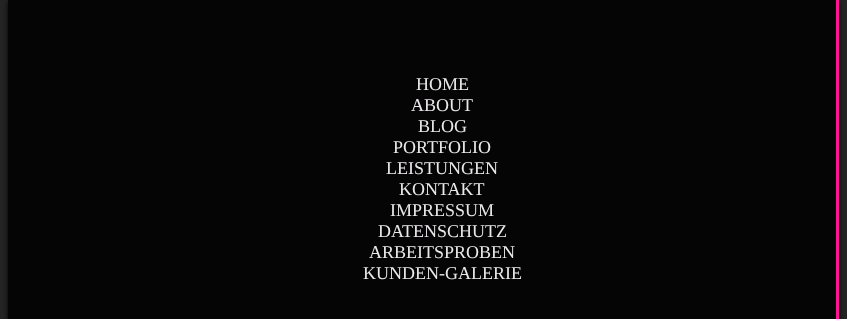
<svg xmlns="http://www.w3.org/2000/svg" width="847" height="319">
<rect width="100%" height="100%" fill="#242424"/>
<rect x="8" y="2" width="831" height="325" fill="#000" filter="blur(2.5px)"/>
<rect x="8" width="828" height="319" fill="#050505"/>
<rect x="836" width="3" height="319" fill="#ff1493"/>
<text x="416" y="90" style="font-family:Liberation Serif;font-size:18px;fill:#ebe8eb">HOME</text>
<text x="411" y="111" style="font-family:Liberation Serif;font-size:18px;fill:#ebe8eb">ABOUT</text>
<text x="418" y="132" style="font-family:Liberation Serif;font-size:18px;fill:#ebe8eb">BLOG</text>
<text x="393" y="153" style="font-family:Liberation Serif;font-size:18px;fill:#ebe8eb">PORTFOLIO</text>
<text x="386" y="174" style="font-family:Liberation Serif;font-size:18px;fill:#ebe8eb">LEISTUNGEN</text>
<text x="399" y="195" style="font-family:Liberation Serif;font-size:18px;fill:#ebe8eb">KONTAKT</text>
<text x="390" y="216" style="font-family:Liberation Serif;font-size:18px;fill:#ebe8eb">IMPRESSUM</text>
<text x="378" y="237" style="font-family:Liberation Serif;font-size:18px;fill:#ebe8eb">DATENSCHUTZ</text>
<text x="369" y="258" style="font-family:Liberation Serif;font-size:18px;fill:#ebe8eb">ARBEITSPROBEN</text>
<text x="363" y="279" style="font-family:Liberation Serif;font-size:18px;fill:#ebe8eb">KUNDEN-GALERIE</text>
</svg>
